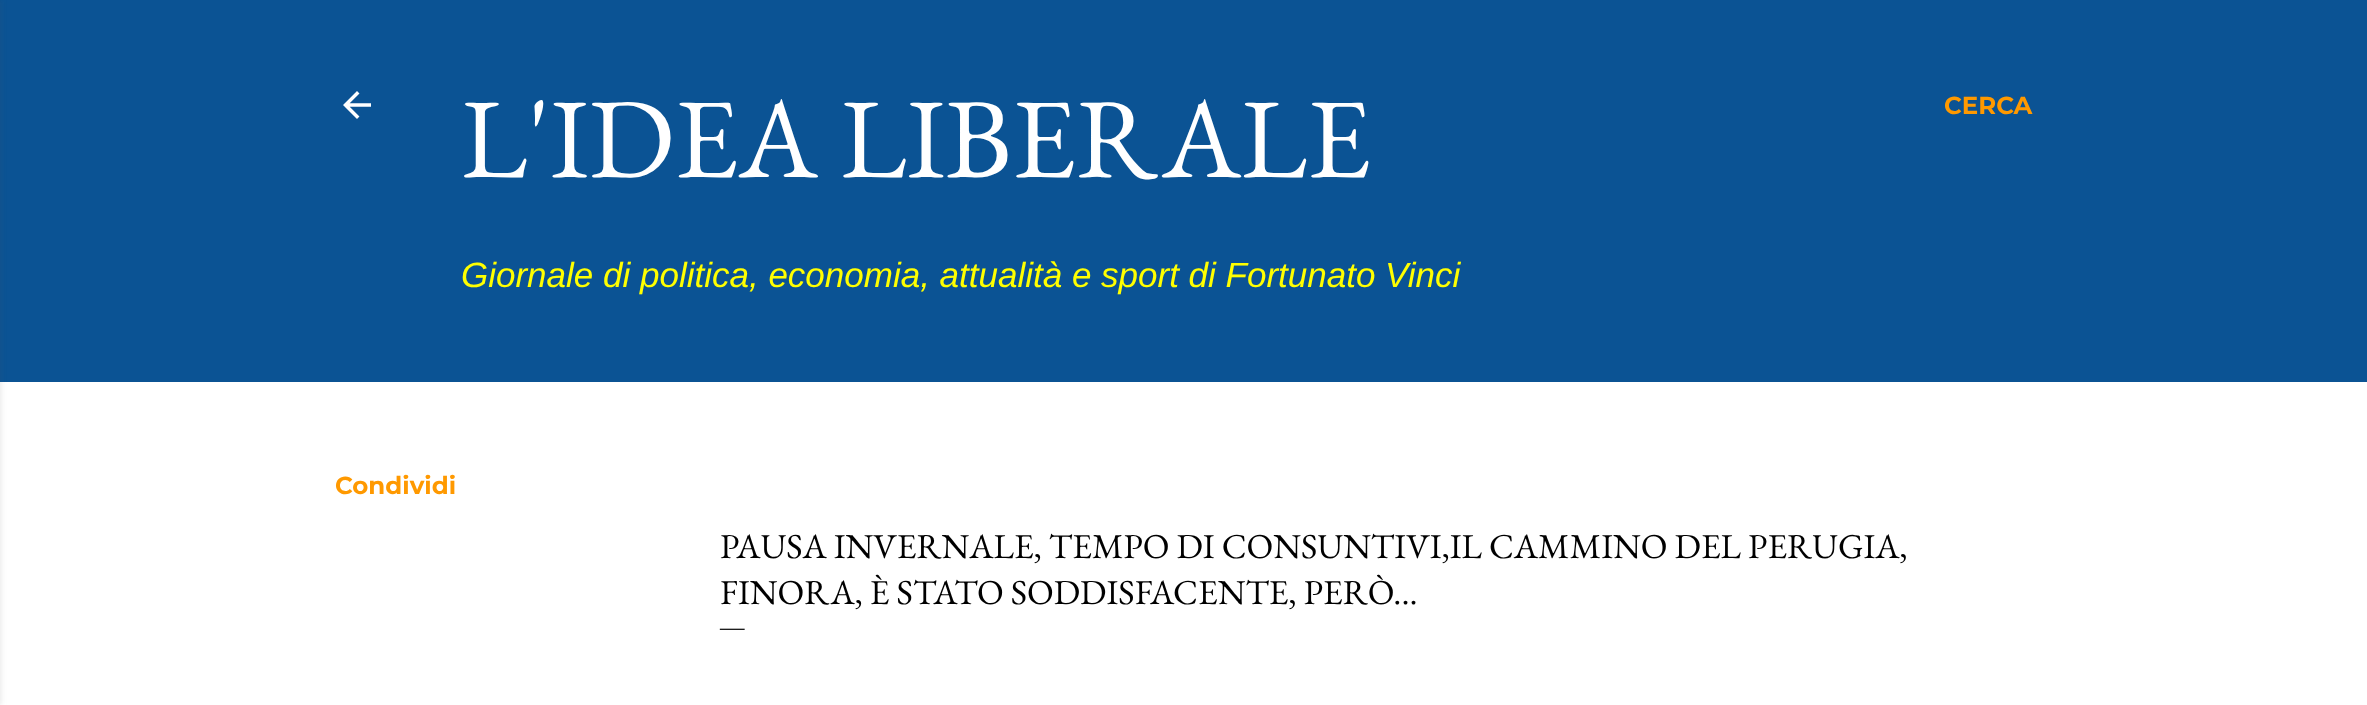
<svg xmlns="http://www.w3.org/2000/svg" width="2367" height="705">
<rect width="100%" height="100%" fill="#fff"/>
<rect width="2367" height="382" fill="#0b5394"/>
<rect x="-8" width="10" height="705" fill="#5656561a" filter="blur(2.5px)"/>
<image x="343" y="91" width="28" height="28" href="media/1.png"/>
<text x="461" y="177" style="font-family:EB Garamond;font-size:113.75px;fill:#fff">L'IDEA LIBERALE</text>
<text x="461" y="287" style="font-family:Liberation Sans;font-size:35px;font-style:italic;fill:#ff0">Giornale di politica, economia, attualità e sport di Fortunato Vinci</text>
<text x="1944" y="114" style="font-family:Montserrat;font-size:24.5px;font-weight:bold;fill:#f90">CERCA</text>
<text x="335" y="494" style="font-family:Montserrat;font-size:24.5px;font-weight:bold;fill:#f90">Condividi</text>
<text x="720" y="558" style="font-family:EB Garamond;font-size:35px;fill:#000">PAUSA INVERNALE, TEMPO DI CONSUNTIVI,IL CAMMINO DEL PERUGIA,</text>
<text x="720" y="604" style="font-family:EB Garamond;font-size:35px;fill:#000">FINORA, È STATO SODDISFACENTE, PERÒ...</text>
<text x="720" y="635" style="font-family:Liberation Serif;font-size:24.5px;fill:#000">—</text>
</svg>
